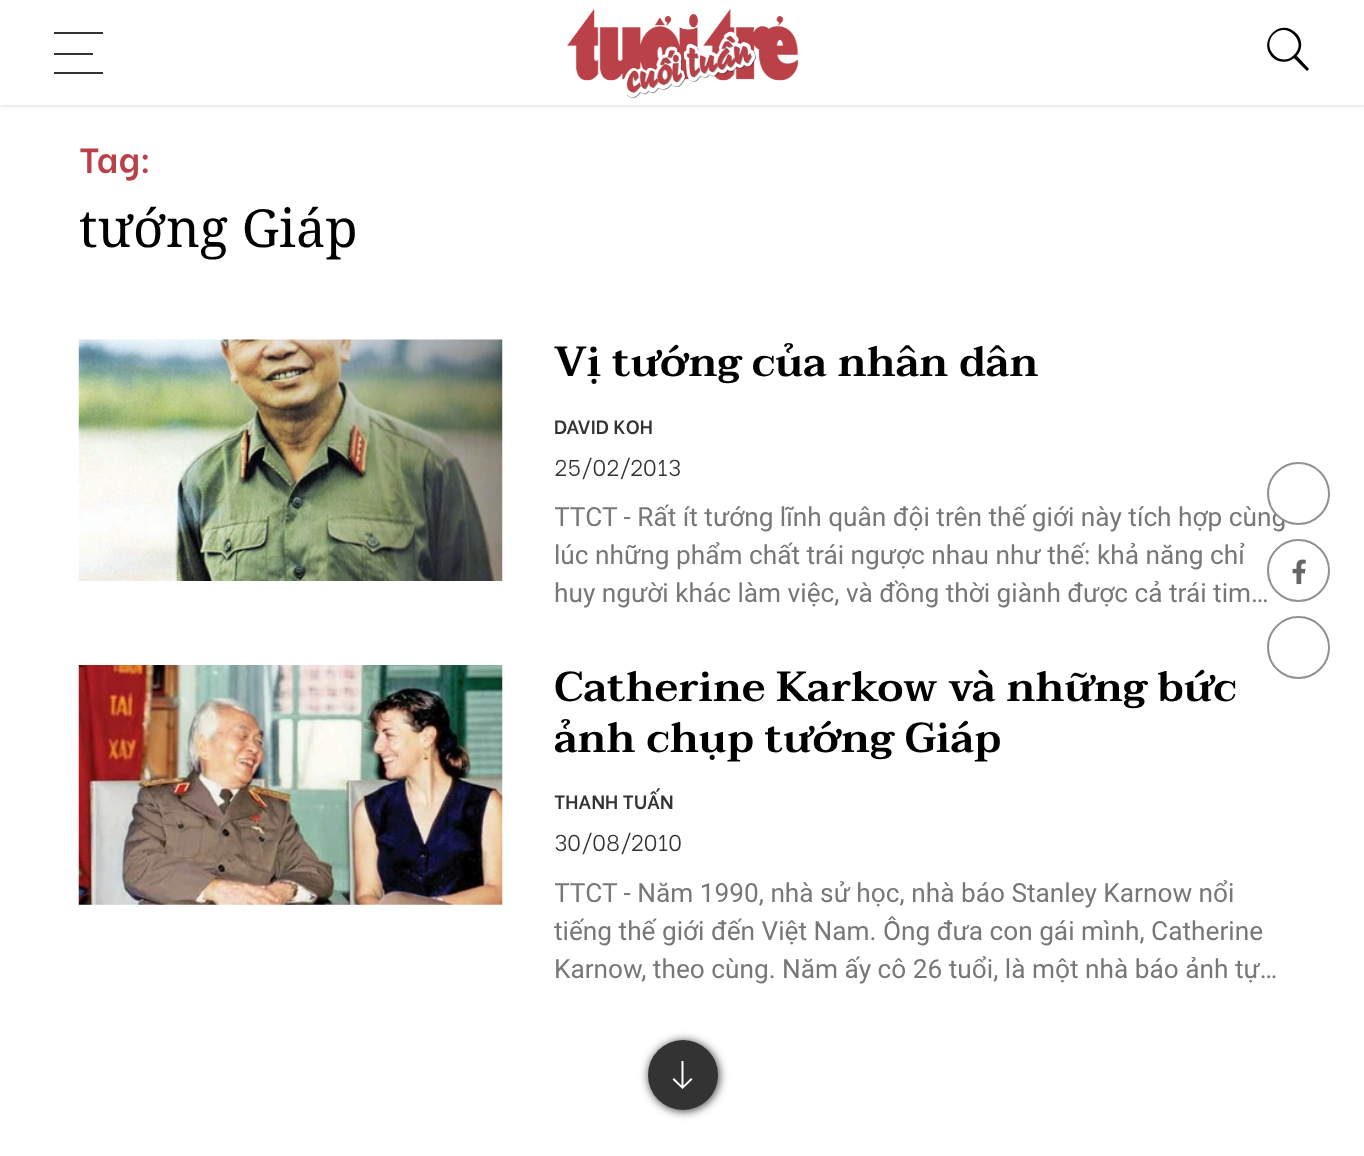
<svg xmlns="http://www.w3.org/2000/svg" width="1364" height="1156">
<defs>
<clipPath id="clip1"><rect x="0" y="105" width="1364" height="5"/></clipPath>
<clipPath id="clip2"><rect x="555" y="501" width="731" height="113"/></clipPath>
<clipPath id="clip3"><rect x="555" y="875" width="731" height="114"/></clipPath>
</defs>
<rect width="100%" height="100%" fill="#fff"/>
<g clip-path="url(#clip1)">
<rect width="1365" height="105" fill="#ccc" filter="blur(2.5px)"/>
</g>
<rect x="54" y="32" width="49" height="2" fill="#333"/>
<rect x="54" y="53" width="39" height="2" fill="#333"/>
<rect x="54" y="72" width="49" height="2" fill="#333"/>
<image x="567" y="9" width="231" height="89" href="media/1.png"/>
<path d="M1274 34c-14 14 7 35 20 21c14-13-7-34-20-21zm-2 23c-15-16 8-40 24-24c16 16-8 39-24 24zm25-1l12 13l-2 2l-13-13z" fill="#000"/>
<text x="79" y="173" style="font-family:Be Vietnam;font-size:35px;font-weight:600;fill:#ba4148">Tag:</text>
<text x="79" y="247" style="font-family:Noto Serif;font-size:52.5px;fill:#000">tướng Giáp</text>
<image x="78" y="339" width="425" height="242" href="media/2.png"/>
<text x="554" y="376" style="font-family:Taviraj;font-size:42px;font-weight:600;fill:#000">Vị tướng của nhân dân</text>
<text x="554" y="434" style="font-family:Be Vietnam;font-size:19.25px;font-weight:600;fill:#333">DAVID KOH</text>
<text x="554" y="476" style="font-family:Be Vietnam;font-size:22.75px;font-weight:300;fill:#333">25/02/2013</text>
<g clip-path="url(#clip2)">
<text x="554" y="526" style="font-family:Roboto;font-size:26.25px;fill:#777">TTCT - Rất ít tướng lĩnh quân đội trên thế giới này tích hợp cùng</text>
</g>
<text x="554" y="564" style="font-family:Roboto;font-size:26.25px;fill:#777">lúc những phẩm chất trái ngược nhau như thế: khả năng chỉ</text>
<text x="554" y="602" style="font-family:Roboto;font-size:26.25px;fill:#777">huy người khác làm việc, và đồng thời giành được cả trái tim…</text>
<image x="78" y="665" width="425" height="240" href="media/3.png"/>
<text x="554" y="701" style="font-family:Taviraj;font-size:42px;font-weight:600;fill:#000">Catherine Karkow và những bức</text>
<text x="554" y="752" style="font-family:Taviraj;font-size:42px;font-weight:600;fill:#000">ảnh chụp tướng Giáp</text>
<text x="554" y="809" style="font-family:Be Vietnam;font-size:19.25px;font-weight:600;fill:#333">THANH TUẤN</text>
<text x="554" y="851" style="font-family:Be Vietnam;font-size:22.75px;font-weight:300;fill:#333">30/08/2010</text>
<g clip-path="url(#clip3)">
<text x="554" y="902" style="font-family:Roboto;font-size:26.25px;fill:#777">TTCT - Năm 1990, nhà sử học, nhà báo Stanley Karnow nổi</text>
</g>
<text x="554" y="940" style="font-family:Roboto;font-size:26.25px;fill:#777">tiếng thế giới đến Việt Nam. Ông đưa con gái mình, Catherine</text>
<text x="554" y="978" style="font-family:Roboto;font-size:26.25px;fill:#777">Karnow, theo cùng. Năm ấy cô 26 tuổi, là một nhà báo ảnh tự…</text>
<rect x="649" y="1041" width="70" height="70" rx="35" fill="#333" filter="blur(5px)"/>
<circle cx="683" cy="1075" r="35" fill="#333"/>
<path d="M692.5 1079.5l-1.5-1.5l-8.5 8.5l-8.5-8.5l-1.5 1.5l10 9.5zm-9-18.5h-2v26.5h2z" fill="#fff"/>
<circle cx="1298.5" cy="493.5" r="30.5" fill="#fff" stroke="#919191" stroke-width="2"/>
<circle cx="1298.5" cy="570.5" r="30.5" fill="none" stroke="#919191" stroke-width="2"/>
<image x="1292" y="559" width="14" height="26" href="media/4.png"/>
<circle cx="1298.5" cy="647.5" r="30.5" fill="none" stroke="#919191" stroke-width="2"/>
</svg>
